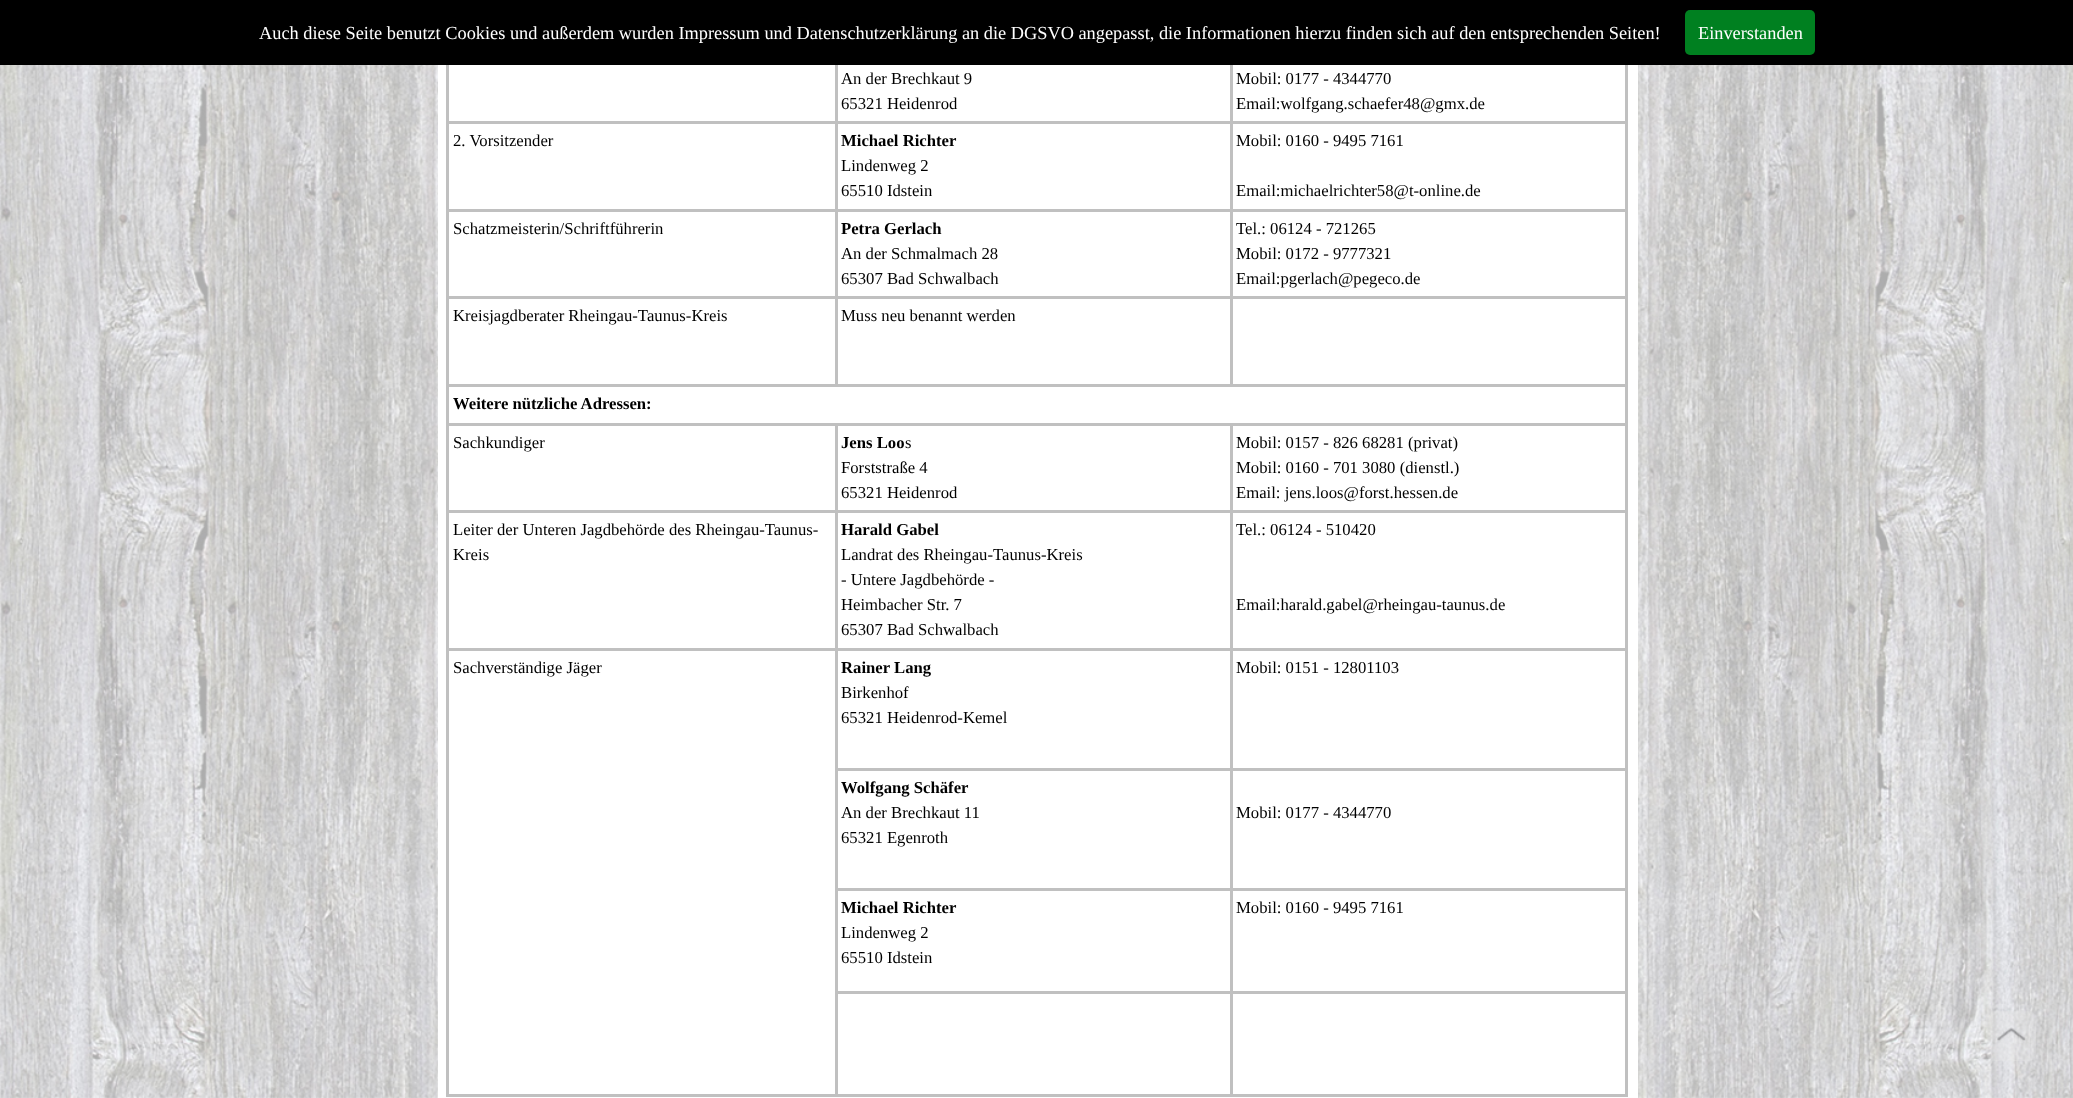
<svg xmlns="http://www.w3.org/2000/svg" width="2073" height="1098">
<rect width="100%" height="100%" fill="#fff"/>
<rect width="2073" height="65" fill="#000"/>
<text x="259" y="39" style="font-family:Liberation Serif;font-size:18.33px;fill:#fff">Auch diese Seite benutzt Cookies und außerdem wurden Impressum und Datenschutzerklärung an die DGSVO angepasst, die Informationen hierzu finden sich auf den entsprechenden Seiten!</text>
<rect x="1685" y="10" width="130" height="45" rx="5" fill="#008020"/>
<text x="1698" y="39" style="font-family:Liberation Serif;font-size:18.33px;fill:#fff">Einverstanden</text>
<image x="0" y="65" width="2073" height="1033" href="media/1.png"/>
<rect x="438" y="65" width="1200" height="1033" fill="#fff"/>
<rect x="1230" y="121" width="398" height="3" fill="#c0c0c0"/>
<rect x="1230" y="209" width="398" height="3" fill="#c0c0c0"/>
<rect x="1230" y="296" width="398" height="3" fill="#c0c0c0"/>
<rect x="446" y="384" width="1182" height="3" fill="#c0c0c0"/>
<rect x="1230" y="296" width="3" height="90" fill="#c0c0c0"/>
<rect x="835" y="296" width="398" height="3" fill="#c0c0c0"/>
<rect x="1230" y="209" width="3" height="90" fill="#c0c0c0"/>
<rect x="835" y="209" width="398" height="3" fill="#c0c0c0"/>
<rect x="1230" y="121" width="3" height="90" fill="#c0c0c0"/>
<rect x="835" y="121" width="398" height="3" fill="#c0c0c0"/>
<rect x="835" y="296" width="3" height="90" fill="#c0c0c0"/>
<rect x="446" y="296" width="392" height="3" fill="#c0c0c0"/>
<rect x="835" y="209" width="3" height="90" fill="#c0c0c0"/>
<rect x="446" y="209" width="392" height="3" fill="#c0c0c0"/>
<rect x="835" y="121" width="3" height="90" fill="#c0c0c0"/>
<rect x="446" y="121" width="392" height="3" fill="#c0c0c0"/>
<rect x="835" y="65" width="3" height="59" fill="#c0c0c0"/>
<text x="841" y="84" style="font-family:Liberation Serif;font-size:16.7px;fill:#000">An der Brechkaut 9</text>
<text x="841" y="109" style="font-family:Liberation Serif;font-size:16.7px;fill:#000">65321 Heidenrod</text>
<rect x="1230" y="65" width="3" height="59" fill="#c0c0c0"/>
<text x="1236" y="84" style="font-family:Liberation Serif;font-size:16.7px;fill:#000">Mobil: 0177 - 4344770</text>
<text x="1236" y="109" style="font-family:Liberation Serif;font-size:16.7px;fill:#000">Email:wolfgang.schaefer48@gmx.de</text>
<rect x="1230" y="423" width="398" height="3" fill="#c0c0c0"/>
<rect x="1230" y="510" width="398" height="3" fill="#c0c0c0"/>
<rect x="1230" y="648" width="398" height="3" fill="#c0c0c0"/>
<rect x="1230" y="768" width="398" height="3" fill="#c0c0c0"/>
<rect x="1230" y="888" width="398" height="3" fill="#c0c0c0"/>
<rect x="1230" y="991" width="398" height="3" fill="#c0c0c0"/>
<rect x="1625" y="991" width="3" height="105" fill="#c0c0c0"/>
<rect x="1230" y="1094" width="398" height="3" fill="#c0c0c0"/>
<rect x="1230" y="991" width="3" height="105" fill="#c0c0c0"/>
<rect x="835" y="991" width="398" height="3" fill="#c0c0c0"/>
<rect x="1230" y="888" width="3" height="106" fill="#c0c0c0"/>
<rect x="835" y="888" width="398" height="3" fill="#c0c0c0"/>
<rect x="1230" y="768" width="3" height="122" fill="#c0c0c0"/>
<rect x="835" y="768" width="398" height="3" fill="#c0c0c0"/>
<rect x="1230" y="648" width="3" height="122" fill="#c0c0c0"/>
<rect x="835" y="648" width="398" height="3" fill="#c0c0c0"/>
<rect x="1230" y="510" width="3" height="140" fill="#c0c0c0"/>
<rect x="835" y="510" width="398" height="3" fill="#c0c0c0"/>
<rect x="1230" y="423" width="3" height="90" fill="#c0c0c0"/>
<rect x="835" y="423" width="398" height="3" fill="#c0c0c0"/>
<rect x="835" y="1094" width="398" height="3" fill="#c0c0c0"/>
<rect x="835" y="991" width="3" height="105" fill="#c0c0c0"/>
<rect x="835" y="888" width="3" height="106" fill="#c0c0c0"/>
<rect x="835" y="768" width="3" height="122" fill="#c0c0c0"/>
<rect x="835" y="648" width="3" height="122" fill="#c0c0c0"/>
<rect x="446" y="648" width="392" height="3" fill="#c0c0c0"/>
<rect x="835" y="510" width="3" height="140" fill="#c0c0c0"/>
<rect x="446" y="510" width="392" height="3" fill="#c0c0c0"/>
<rect x="835" y="423" width="3" height="90" fill="#c0c0c0"/>
<rect x="446" y="423" width="392" height="3" fill="#c0c0c0"/>
<rect x="446" y="1094" width="392" height="3" fill="#c0c0c0"/>
<rect x="446" y="648" width="3" height="448" fill="#c0c0c0"/>
<rect x="446" y="510" width="3" height="140" fill="#c0c0c0"/>
<rect x="446" y="423" width="3" height="90" fill="#c0c0c0"/>
<rect x="446" y="384" width="3" height="41" fill="#c0c0c0"/>
<rect x="446" y="296" width="3" height="90" fill="#c0c0c0"/>
<rect x="446" y="209" width="3" height="90" fill="#c0c0c0"/>
<rect x="446" y="65" width="3" height="146" fill="#c0c0c0"/>
<text x="453" y="146" style="font-family:Liberation Serif;font-size:16.7px;fill:#000">2. Vorsitzender</text>
<text x="841" y="146" style="font-family:Liberation Serif;font-size:16.7px;font-weight:bold;fill:#000">Michael Richter</text>
<text x="841" y="171" style="font-family:Liberation Serif;font-size:16.7px;fill:#000">Lindenweg 2</text>
<text x="841" y="196" style="font-family:Liberation Serif;font-size:16.7px;fill:#000">65510 Idstein</text>
<rect x="1625" y="888" width="3" height="106" fill="#c0c0c0"/>
<rect x="1625" y="768" width="3" height="122" fill="#c0c0c0"/>
<rect x="1625" y="648" width="3" height="122" fill="#c0c0c0"/>
<rect x="1625" y="510" width="3" height="140" fill="#c0c0c0"/>
<rect x="1625" y="423" width="3" height="90" fill="#c0c0c0"/>
<rect x="1625" y="384" width="3" height="41" fill="#c0c0c0"/>
<rect x="1625" y="296" width="3" height="90" fill="#c0c0c0"/>
<rect x="1625" y="209" width="3" height="90" fill="#c0c0c0"/>
<rect x="1625" y="65" width="3" height="146" fill="#c0c0c0"/>
<text x="1236" y="146" style="font-family:Liberation Serif;font-size:16.7px;fill:#000">Mobil: 0160 - 9495 7161</text>
<text x="1236" y="196" style="font-family:Liberation Serif;font-size:16.7px;fill:#000">Email:michaelrichter58@t-online.de</text>
<text x="453" y="234" style="font-family:Liberation Serif;font-size:16.7px;fill:#000">Schatzmeisterin/Schriftführerin</text>
<text x="841" y="234" style="font-family:Liberation Serif;font-size:16.7px;font-weight:bold;fill:#000">Petra Gerlach</text>
<text x="841" y="259" style="font-family:Liberation Serif;font-size:16.7px;fill:#000">An der Schmalmach 28</text>
<text x="841" y="284" style="font-family:Liberation Serif;font-size:16.7px;fill:#000">65307 Bad Schwalbach</text>
<text x="1236" y="234" style="font-family:Liberation Serif;font-size:16.7px;fill:#000">Tel.: 06124 - 721265</text>
<text x="1236" y="259" style="font-family:Liberation Serif;font-size:16.7px;fill:#000">Mobil: 0172 - 9777321</text>
<text x="1236" y="284" style="font-family:Liberation Serif;font-size:16.7px;fill:#000">Email:pgerlach@pegeco.de</text>
<text x="453" y="321" style="font-family:Liberation Serif;font-size:16.7px;fill:#000">Kreisjagdberater Rheingau-Taunus-Kreis</text>
<text x="841" y="321" style="font-family:Liberation Serif;font-size:16.7px;fill:#000">Muss neu benannt werden</text>
<text x="453" y="409" style="font-family:Liberation Serif;font-size:16.7px;font-weight:bold;fill:#000">Weitere nützliche Adressen:</text>
<text x="453" y="448" style="font-family:Liberation Serif;font-size:16.7px;fill:#000">Sachkundiger</text>
<text x="841" y="448" style="font-family:Liberation Serif;font-size:16.7px;font-weight:bold;fill:#000">Jens Loo</text>
<text x="905" y="448" style="font-family:Liberation Serif;font-size:16.7px;fill:#000">s</text>
<text x="841" y="473" style="font-family:Liberation Serif;font-size:16.7px;fill:#000">Forststraße 4</text>
<text x="841" y="498" style="font-family:Liberation Serif;font-size:16.7px;fill:#000">65321 Heidenrod</text>
<text x="1236" y="448" style="font-family:Liberation Serif;font-size:16.7px;fill:#000">Mobil: 0157 - 826 68281 (privat)</text>
<text x="1236" y="473" style="font-family:Liberation Serif;font-size:16.7px;fill:#000">Mobil: 0160 - 701 3080 (dienstl.)</text>
<text x="1236" y="498" style="font-family:Liberation Serif;font-size:16.7px;fill:#000">Email: jens.loos@forst.hessen.de</text>
<text x="453" y="535" style="font-family:Liberation Serif;font-size:16.7px;fill:#000">Leiter der Unteren Jagdbehörde des Rheingau-Taunus-</text>
<text x="453" y="560" style="font-family:Liberation Serif;font-size:16.7px;fill:#000">Kreis</text>
<text x="841" y="535" style="font-family:Liberation Serif;font-size:16.7px;font-weight:bold;fill:#000">Harald Gabel</text>
<text x="841" y="560" style="font-family:Liberation Serif;font-size:16.7px;fill:#000">Landrat des Rheingau-Taunus-Kreis</text>
<text x="841" y="585" style="font-family:Liberation Serif;font-size:16.7px;fill:#000">- Untere Jagdbehörde -</text>
<text x="841" y="610" style="font-family:Liberation Serif;font-size:16.7px;fill:#000">Heimbacher Str. 7</text>
<text x="841" y="635" style="font-family:Liberation Serif;font-size:16.7px;fill:#000">65307 Bad Schwalbach</text>
<text x="1236" y="535" style="font-family:Liberation Serif;font-size:16.7px;fill:#000">Tel.: 06124 - 510420</text>
<text x="1236" y="610" style="font-family:Liberation Serif;font-size:16.7px;fill:#000">Email:harald.gabel@rheingau-taunus.de</text>
<text x="453" y="673" style="font-family:Liberation Serif;font-size:16.7px;fill:#000">Sachverständige Jäger</text>
<text x="841" y="673" style="font-family:Liberation Serif;font-size:16.7px;font-weight:bold;fill:#000">Rainer Lang</text>
<text x="841" y="698" style="font-family:Liberation Serif;font-size:16.7px;fill:#000">Birkenhof</text>
<text x="841" y="723" style="font-family:Liberation Serif;font-size:16.7px;fill:#000">65321 Heidenrod-Kemel</text>
<text x="1236" y="673" style="font-family:Liberation Serif;font-size:16.7px;fill:#000">Mobil: 0151 - 12801103</text>
<text x="841" y="793" style="font-family:Liberation Serif;font-size:16.7px;font-weight:bold;fill:#000">Wolfgang Schäfer</text>
<text x="841" y="818" style="font-family:Liberation Serif;font-size:16.7px;fill:#000">An der Brechkaut 11</text>
<text x="841" y="843" style="font-family:Liberation Serif;font-size:16.7px;fill:#000">65321 Egenroth</text>
<text x="1236" y="818" style="font-family:Liberation Serif;font-size:16.7px;fill:#000">Mobil: 0177 - 4344770</text>
<text x="841" y="913" style="font-family:Liberation Serif;font-size:16.7px;font-weight:bold;fill:#000">Michael Richter</text>
<text x="841" y="938" style="font-family:Liberation Serif;font-size:16.7px;fill:#000">Lindenweg 2</text>
<text x="841" y="963" style="font-family:Liberation Serif;font-size:16.7px;fill:#000">65510 Idstein</text>
<text x="1236" y="913" style="font-family:Liberation Serif;font-size:16.7px;fill:#000">Mobil: 0160 - 9495 7161</text>
<image x="1986" y="1011" width="50" height="50" href="media/2.png"/>
</svg>
